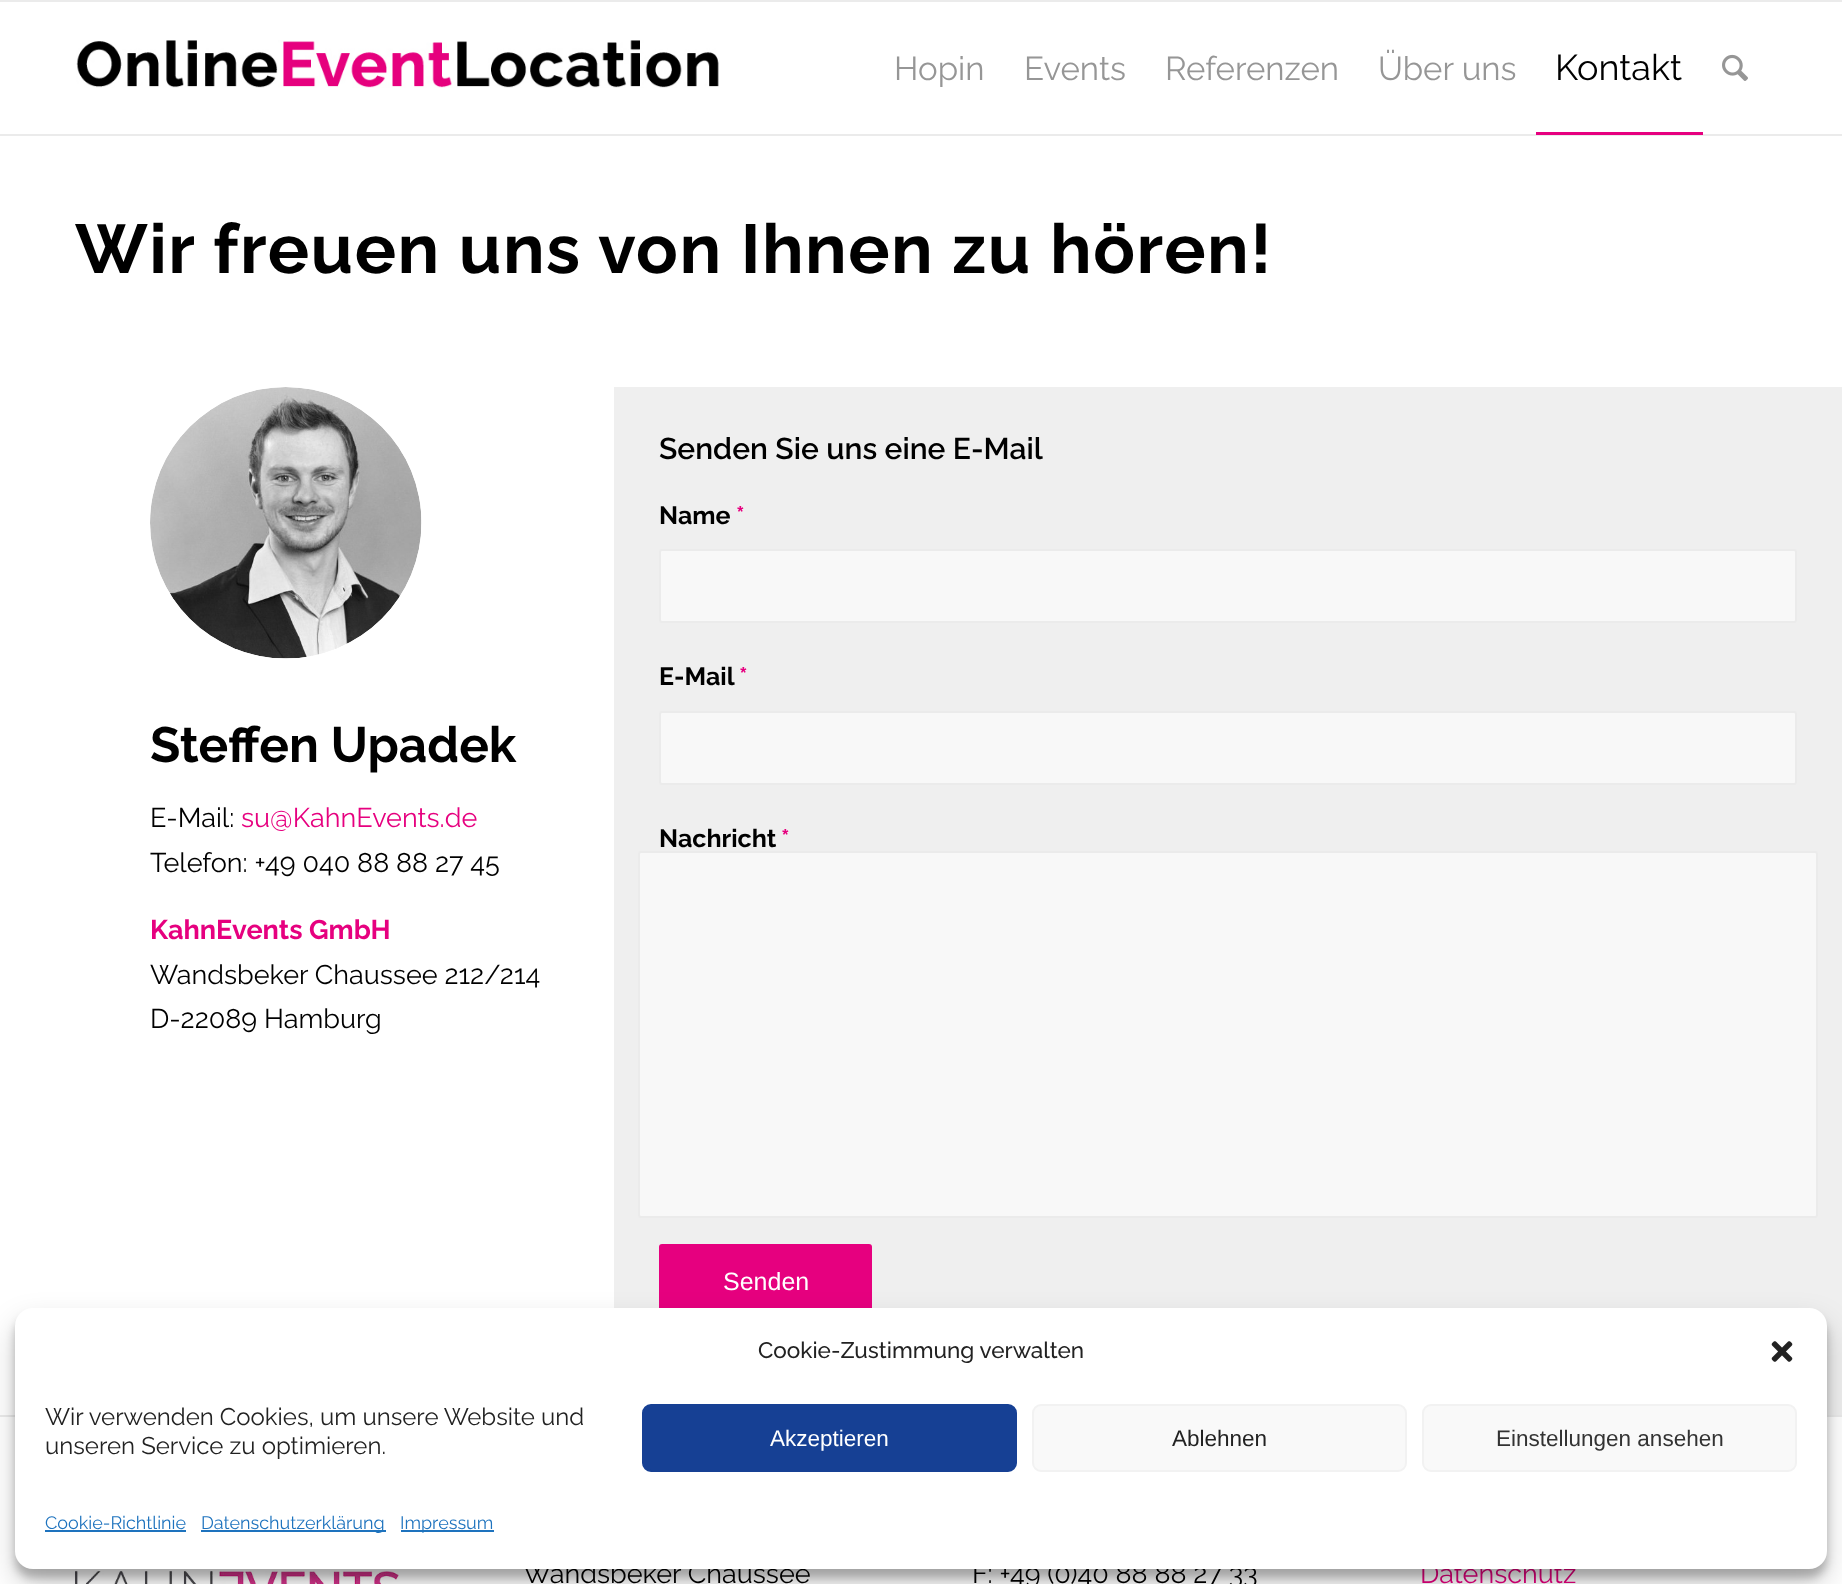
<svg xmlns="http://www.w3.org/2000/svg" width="1842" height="1584">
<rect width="100%" height="100%" fill="#fff"/>
<rect width="1842" height="2" fill="#ebebeb"/>
<rect y="134" width="1842" height="2" fill="#ebebeb"/>
<image x="76" y="40" width="643" height="48" href="media/1.png"/>
<text x="894" y="80" style="font-family:Raleway;font-size:33px;fill:#969696">Hopin</text>
<text x="1024" y="80" style="font-family:Raleway;font-size:33px;fill:#969696">Events</text>
<text x="1165" y="80" style="font-family:Raleway;font-size:33px;fill:#969696">Referenzen</text>
<text x="1378" y="80" style="font-family:Raleway;font-size:33px;fill:#969696">Über uns</text>
<text x="1555" y="80" style="font-family:Raleway;font-size:36px;fill:#000">Kontakt</text>
<rect x="1536" y="132" width="167" height="3" fill="#e6007f"/>
<image x="1722" y="54" width="26" height="27" href="media/2.png"/>
<text x="75" y="273" style="font-family:Raleway;font-size:69px;font-weight:bold;letter-spacing:1.5px;fill:#000">Wir freuen uns von Ihnen zu hören!</text>
<image x="150" y="387" width="272" height="272" href="media/3.png"/>
<text x="150" y="762" style="font-family:Raleway;font-size:49.5px;font-weight:bold;fill:#000">Steffen Upadek</text>
<text x="150" y="827" style="font-family:Raleway;font-size:27px;fill:#000">E-Mail:</text>
<text x="241" y="827" style="font-family:Raleway;font-size:27px;fill:#e6007f">su@KahnEvents.de</text>
<text x="150" y="872" style="font-family:Raleway;font-size:27px;fill:#000">Telefon: +49 040 88 88 27 45</text>
<text x="150" y="939" style="font-family:Raleway;font-size:27px;font-weight:bold;fill:#e6007f">KahnEvents GmbH</text>
<text x="150" y="984" style="font-family:Raleway;font-size:27px;fill:#000">Wandsbeker Chaussee 212/214</text>
<text x="150" y="1028" style="font-family:Raleway;font-size:27px;fill:#000">D-22089 Hamburg</text>
<rect x="614" y="387" width="1228" height="1028" fill="#efefef"/>
<text x="659" y="459" style="font-family:Raleway;font-size:30px;font-weight:600;fill:#000">Senden Sie uns eine E-Mail</text>
<text x="659" y="524" style="font-family:Raleway;font-size:25px;font-weight:bold;fill:#000">Name</text>
<text x="736" y="524" style="font-family:Raleway;font-size:25px;font-weight:bold;fill:#e6007f">*</text>
<rect x="660" y="550" width="1136" height="72" rx="2" fill="#f8f8f8" stroke="#ebebeb" stroke-width="2"/>
<text x="659" y="685" style="font-family:Raleway;font-size:25px;font-weight:bold;fill:#000">E-Mail</text>
<text x="739" y="685" style="font-family:Raleway;font-size:25px;font-weight:bold;fill:#e6007f">*</text>
<rect x="660" y="712" width="1136" height="72" rx="2" fill="#f8f8f8" stroke="#ebebeb" stroke-width="2"/>
<text x="659" y="847" style="font-family:Raleway;font-size:25px;font-weight:bold;fill:#000">Nachricht</text>
<text x="781" y="847" style="font-family:Raleway;font-size:25px;font-weight:bold;fill:#e6007f">*</text>
<rect x="639" y="852" width="1178" height="365" rx="2" fill="#f8f8f8" stroke="#ebebeb" stroke-width="2"/>
<rect x="659" y="1244" width="213" height="79" rx="3" fill="#e6007f"/>
<text x="723" y="1290" style="font-family:Liberation Sans;font-size:25px;fill:#fff">Senden</text>
<rect y="1415" width="1842" height="2" fill="#ebebeb"/>
<image x="75" y="1571" width="324" height="13" href="media/4.png"/>
<text x="523" y="1583" style="font-family:Raleway;font-size:27px;fill:#000">Wandsbeker Chaussee</text>
<text x="972" y="1583" style="font-family:Raleway;font-size:27px;fill:#000">F: +49 (0)40 88 88 27 33</text>
<text x="1420" y="1583" style="font-family:Raleway;font-size:27px;fill:#e6007f">Datenschutz</text>
<rect x="15" y="1317" width="1812" height="261" rx="18" fill="#0000003b" filter="blur(4.5px)"/>
<rect x="15" y="1323" width="1812" height="261" rx="18" fill="#00000030" filter="blur(15px)"/>
<rect x="15" y="1308" width="1812" height="261" rx="18" fill="#fff"/>
<text x="758" y="1358" style="font-family:Raleway;font-size:22.5px;font-weight:500;fill:#222">Cookie-Zustimmung verwalten</text>
<image x="1771" y="1341" width="22" height="21" href="media/5.png"/>
<text x="45" y="1425" style="font-family:Raleway;font-size:24px;fill:#222">Wir verwenden Cookies, um unsere Website und</text>
<text x="45" y="1454" style="font-family:Raleway;font-size:24px;fill:#222">unseren Service zu optimieren.</text>
<rect x="643" y="1405" width="373" height="66" rx="8" fill="#164094" stroke="#164094" stroke-width="2"/>
<text x="770" y="1446" style="font-family:Liberation Sans;font-size:22.5px;fill:#fff">Akzeptieren</text>
<rect x="1033" y="1405" width="373" height="66" rx="8" fill="#f9f9f9" stroke="#f2f2f2" stroke-width="2"/>
<text x="1172" y="1446" style="font-family:Liberation Sans;font-size:22.5px;fill:#222">Ablehnen</text>
<rect x="1423" y="1405" width="373" height="66" rx="8" fill="#f9f9f9" stroke="#f2f2f2" stroke-width="2"/>
<text x="1496" y="1446" style="font-family:Liberation Sans;font-size:22.5px;fill:#333">Einstellungen ansehen</text>
<text x="45" y="1529" style="font-family:Raleway;font-size:18px;fill:#1e73be">Cookie-Richtlinie</text>
<rect x="45" y="1530" width="141" height="2" fill="#1e73be"/>
<rect x="201" y="1530" width="185" height="2" fill="#1e73be"/>
<text x="201" y="1529" style="font-family:Raleway;font-size:18px;fill:#1e73be">Datenschutzerklärung</text>
<rect x="401" y="1530" width="93" height="2" fill="#1e73be"/>
<text x="400" y="1529" style="font-family:Raleway;font-size:18px;fill:#1e73be">Impressum</text>
</svg>
